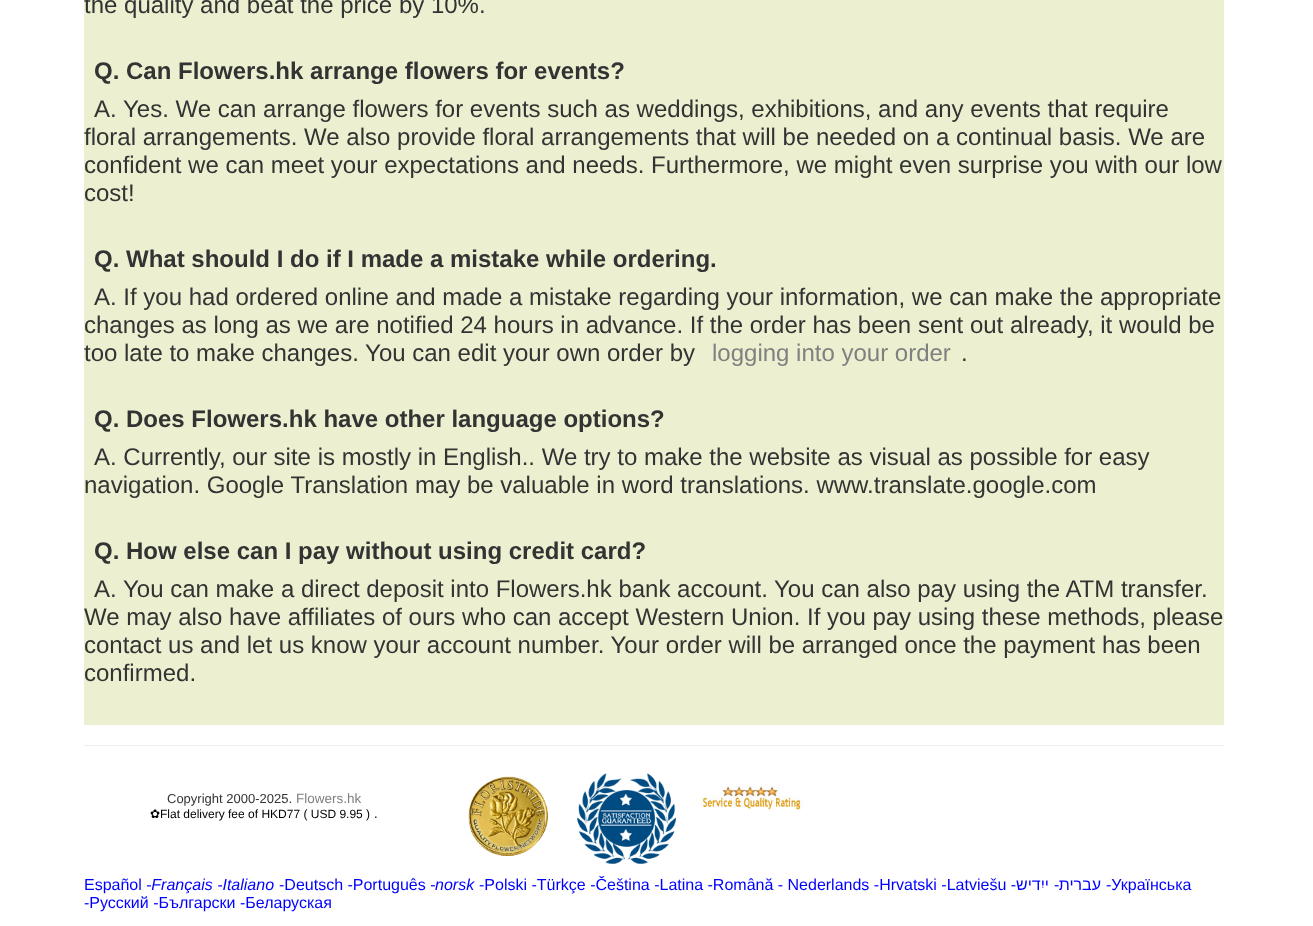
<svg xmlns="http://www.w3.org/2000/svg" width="1313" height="926">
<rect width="100%" height="100%" fill="#fff"/>
<rect x="84" width="1140" height="725" fill="#ecf0d0"/>
<text x="84" y="13" style="font-family:Liberation Sans;font-size:24px;fill:#333">the quality and beat the price by 10%.</text>
<text x="94" y="79" style="font-family:Liberation Sans;font-size:24px;font-weight:bold;fill:#333">Q. Can Flowers.hk arrange flowers for events?</text>
<text x="94" y="117" style="font-family:Liberation Sans;font-size:24px;fill:#333">A.</text>
<text x="123" y="117" style="font-family:Liberation Sans;font-size:24px;fill:#333">Yes. We can arrange flowers for events such as weddings, exhibitions, and any events that require</text>
<text x="84" y="145" style="font-family:Liberation Sans;font-size:24px;fill:#333">floral arrangements. We also provide floral arrangements that will be needed on a continual basis. We are</text>
<text x="84" y="173" style="font-family:Liberation Sans;font-size:24px;fill:#333">confident we can meet your expectations and needs. Furthermore, we might even surprise you with our low</text>
<text x="84" y="201" style="font-family:Liberation Sans;font-size:24px;fill:#333">cost!</text>
<text x="94" y="267" style="font-family:Liberation Sans;font-size:24px;font-weight:bold;fill:#333">Q. What should I do if I made a mistake while ordering.</text>
<text x="94" y="305" style="font-family:Liberation Sans;font-size:24px;fill:#333">A. If you had ordered online and made a mistake regarding your information, we can make the appropriate</text>
<text x="84" y="333" style="font-family:Liberation Sans;font-size:24px;fill:#333">changes as long as we are notified 24 hours in advance. If the order has been sent out already, it would be</text>
<text x="84" y="361" style="font-family:Liberation Sans;font-size:24px;fill:#333">too late to make changes. You can edit your own order by</text>
<text x="712" y="361" style="font-family:Liberation Sans;font-size:24px;fill:#808080">logging into your order</text>
<text x="961" y="361" style="font-family:Liberation Sans;font-size:24px;fill:#333">.</text>
<text x="94" y="427" style="font-family:Liberation Sans;font-size:24px;font-weight:bold;fill:#333">Q. Does Flowers.hk have other language options?</text>
<text x="94" y="465" style="font-family:Liberation Sans;font-size:24px;fill:#333">A. Currently, our site is mostly in English.. We try to make the website as visual as possible for easy</text>
<text x="84" y="493" style="font-family:Liberation Sans;font-size:24px;fill:#333">navigation. Google Translation may be valuable in word translations. www.translate.google.com</text>
<text x="94" y="559" style="font-family:Liberation Sans;font-size:24px;font-weight:bold;fill:#333">Q. How else can I pay without using credit card?</text>
<text x="94" y="597" style="font-family:Liberation Sans;font-size:24px;fill:#333">A.</text>
<text x="123" y="597" style="font-family:Liberation Sans;font-size:24px;fill:#333">You can make a direct deposit into Flowers.hk bank account. You can also pay using the ATM transfer.</text>
<text x="84" y="625" style="font-family:Liberation Sans;font-size:24px;fill:#333">We may also have affiliates of ours who can accept Western Union. If you pay using these methods, please</text>
<text x="84" y="653" style="font-family:Liberation Sans;font-size:24px;fill:#333">contact us and let us know your account number. Your order will be arranged once the payment has been</text>
<text x="84" y="681" style="font-family:Liberation Sans;font-size:24px;fill:#333">confirmed.</text>
<rect x="84" y="745" width="1140" height="1" fill="#eee"/>
<text x="167" y="803" style="font-family:Liberation Sans;font-size:13px;fill:#333">Copyright 2000-2025.</text>
<text x="296" y="803" style="font-family:Liberation Sans;font-size:13.5px;fill:#808080">Flowers.hk</text>
<text x="150" y="818" style="font-family:DejaVu Sans;font-size:12px;fill:#000">✿</text>
<text x="160" y="818" style="font-family:Liberation Sans;font-size:12px;fill:#000">Flat delivery fee of HKD77 ( USD 9.95 )</text>
<text x="374" y="818" style="font-family:Liberation Sans;font-size:13px;fill:#000">.</text>
<image x="468" y="776" width="80" height="80" href="media/1.png"/>
<image x="577" y="773" width="99" height="91" href="media/2.png"/>
<image x="700" y="786" width="103" height="24" href="media/3.png"/>
<text x="84" y="890" style="font-family:Liberation Sans;font-size:16px;fill:#00f">Español</text>
<text x="146" y="890" style="font-family:Liberation Sans;font-size:16px;font-style:italic;fill:#00f">-Français -Italiano</text>
<text x="279" y="890" style="font-family:Liberation Sans;font-size:16px;fill:#00f">-Deutsch -Português -</text>
<text x="435" y="890" style="font-family:Liberation Sans;font-size:16px;font-style:italic;fill:#00f">norsk</text>
<text x="479" y="890" style="font-family:Liberation Sans;font-size:16px;fill:#00f">-Polski -Türkçe -Čeština -Latina -Română - Nederlands -Hrvatski -Latviešu -</text>
<text x="1049" y="890" style="font-family:Liberation Sans;font-size:16px;direction:rtl;fill:#00f">ייִדיש</text>
<text x="1054" y="890" style="font-family:Liberation Sans;font-size:16px;fill:#00f">-</text>
<text x="1101" y="890" style="font-family:Liberation Sans;font-size:16px;direction:rtl;fill:#00f">עברית</text>
<text x="1106" y="890" style="font-family:Liberation Sans;font-size:16px;fill:#00f">-Українська</text>
<text x="84" y="908" style="font-family:Liberation Sans;font-size:16px;fill:#00f">-Русский -Български -Беларуская</text>
</svg>
